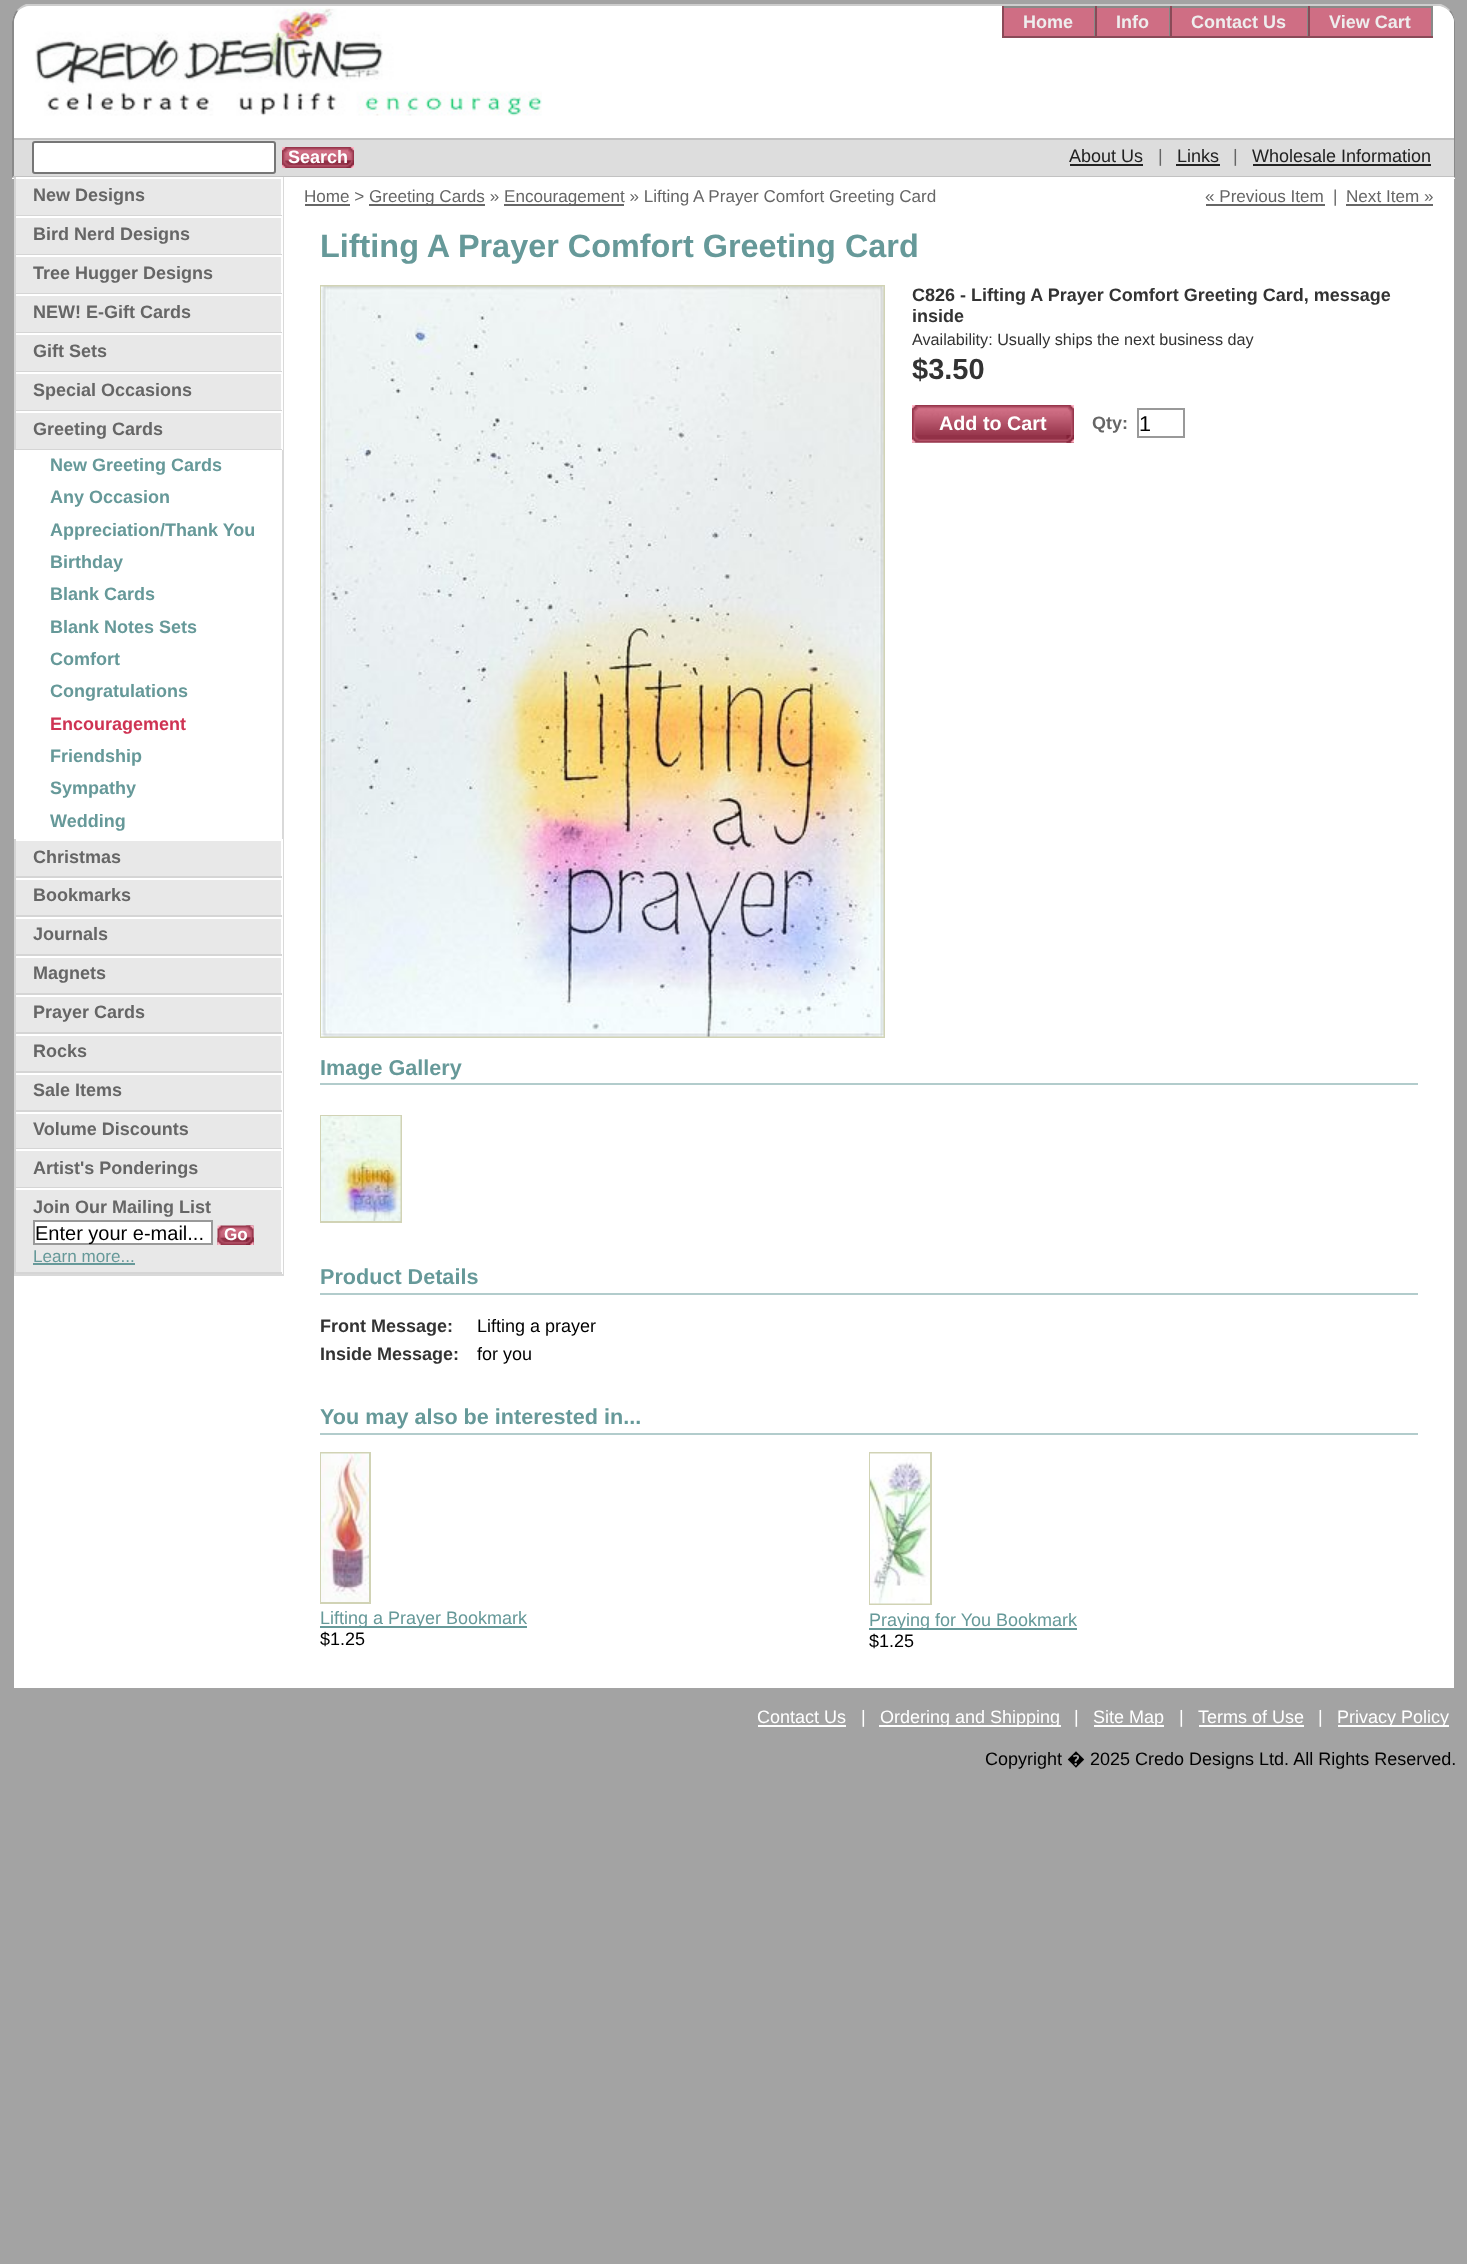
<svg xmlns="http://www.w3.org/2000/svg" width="1467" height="2264">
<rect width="100%" height="100%" fill="#a3a3a3"/>
<path d="M30 5h1407c10 0 18 8 18 18v156h-1443v-156c0-10 8-18 18-18z" fill="#fff"/>
<path d="M30 6c-5 0-9 2-12 5l-1-1c3-3 6-5 9-6h1415c3 1 6 3 9 6l-1 1c-3-3-7-5-12-5z" fill="#cdcdcd"/>
<path d="M1455 178v-156c0-4-2-9-5-12l-1 1c3 3 5 7 5 11v155z" fill="#898989"/>
<path d="M1454 178h-1442l2-2v1h1440z" fill="#cdcdcd"/>
<path d="M12 22v156l2-2v-154c0-4 2-8 4-11l-1-1c-3 3-5 8-5 12z" fill="#898989"/>
<path d="M32 6h1404c10 0 18 8 18 18v114h-1440v-114c0-10 8-18 18-18z" fill="#fff"/>
<image x="35" y="7" width="507" height="109" href="media/1.png"/>
<rect x="1004" y="8" width="90" height="28" fill="#cf6e84"/>
<rect x="1002" y="6" width="431" height="2" fill="#888a88"/>
<rect x="1094" y="6" width="1" height="32" fill="#888a88"/>
<rect x="1002" y="36" width="93" height="2" fill="#8a4a58"/>
<rect x="1002" y="6" width="2" height="32" fill="#8a4a58"/>
<text x="1023" y="28" style="font-family:Liberation Sans;font-size:18px;font-weight:bold;fill:#eee">Home</text>
<rect x="1097" y="8" width="72" height="28" fill="#cf6e84"/>
<rect x="1169" y="6" width="1" height="32" fill="#888a88"/>
<rect x="1095" y="36" width="75" height="2" fill="#8a4a58"/>
<rect x="1095" y="6" width="2" height="32" fill="#8a4a58"/>
<text x="1116" y="28" style="font-family:Liberation Sans;font-size:18px;font-weight:bold;fill:#eee">Info</text>
<rect x="1172" y="8" width="135" height="28" fill="#cf6e84"/>
<rect x="1307" y="6" width="1" height="32" fill="#888a88"/>
<rect x="1170" y="36" width="138" height="2" fill="#8a4a58"/>
<rect x="1170" y="6" width="2" height="32" fill="#8a4a58"/>
<text x="1191" y="28" style="font-family:Liberation Sans;font-size:18px;font-weight:bold;fill:#eee">Contact Us</text>
<rect x="1310" y="8" width="121" height="28" fill="#cf6e84"/>
<rect x="1431" y="6" width="2" height="32" fill="#888a88"/>
<rect x="1308" y="36" width="125" height="2" fill="#8a4a58"/>
<rect x="1308" y="6" width="2" height="32" fill="#8a4a58"/>
<text x="1329" y="28" style="font-family:Liberation Sans;font-size:18px;font-weight:bold;fill:#eee">View Cart</text>
<rect x="14" y="140" width="1440" height="36" fill="#ddd"/>
<rect x="14" y="138" width="1440" height="2" fill="#c2c2c2"/>
<rect x="14" y="176" width="1440" height="1" fill="#c2c2c2"/>
<rect x="33" y="142" width="242" height="31" rx="2" fill="#fff" stroke="#767676" stroke-width="2"/>
<image x="282" y="147" width="66" height="14" href="media/2.png"/>
<image x="348" y="147" width="6" height="14" href="media/3.png"/>
<image x="282" y="160" width="72" height="8" href="media/4.png"/>
<image x="346" y="160" width="8" height="8" href="media/5.png"/>
<text x="288" y="163" style="font-family:Liberation Sans;font-size:18px;font-weight:bold;fill:#fff">Search</text>
<text x="1069" y="162" style="font-family:Liberation Sans;font-size:18px;fill:#222">About Us</text>
<rect x="1070" y="164" width="73" height="2" fill="#222"/>
<text x="1158" y="162" style="font-family:Liberation Sans;font-size:18px;fill:#666">|</text>
<text x="1177" y="162" style="font-family:Liberation Sans;font-size:18px;fill:#222">Links</text>
<rect x="1176" y="164" width="44" height="2" fill="#222"/>
<text x="1233" y="162" style="font-family:Liberation Sans;font-size:18px;fill:#666">|</text>
<text x="1252" y="162" style="font-family:Liberation Sans;font-size:18px;fill:#222">Wholesale Information</text>
<rect x="1253" y="164" width="178" height="2" fill="#222"/>
<rect x="14" y="177" width="1440" height="1511" fill="#fff"/>
<rect x="16" y="179" width="265" height="1093" fill="#e8e8e8"/>
<rect x="282" y="177" width="2" height="1098" fill="#d9d9d9"/>
<rect x="14" y="1274" width="270" height="2" fill="#d9d9d9"/>
<rect x="282" y="177" width="1" height="273" fill="#fff"/>
<rect x="14" y="215" width="268" height="1" fill="#d5d5d5"/>
<rect x="14" y="177" width="2" height="39" fill="#d5d5d5"/>
<text x="33" y="201" style="font-family:Liberation Sans;font-size:18px;font-weight:bold;fill:#666">New Designs</text>
<rect x="14" y="216" width="268" height="2" fill="#fff"/>
<rect x="14" y="254" width="268" height="1" fill="#d5d5d5"/>
<rect x="14" y="216" width="2" height="39" fill="#d5d5d5"/>
<text x="33" y="240" style="font-family:Liberation Sans;font-size:18px;font-weight:bold;fill:#666">Bird Nerd Designs</text>
<rect x="14" y="255" width="268" height="2" fill="#fff"/>
<rect x="14" y="293" width="268" height="1" fill="#d5d5d5"/>
<rect x="14" y="255" width="2" height="39" fill="#d5d5d5"/>
<text x="33" y="279" style="font-family:Liberation Sans;font-size:18px;font-weight:bold;fill:#666">Tree Hugger Designs</text>
<rect x="14" y="294" width="268" height="2" fill="#fff"/>
<rect x="14" y="332" width="268" height="1" fill="#d5d5d5"/>
<rect x="14" y="294" width="2" height="39" fill="#d5d5d5"/>
<text x="33" y="318" style="font-family:Liberation Sans;font-size:18px;font-weight:bold;fill:#666">NEW! E-Gift Cards</text>
<rect x="14" y="333" width="268" height="2" fill="#fff"/>
<rect x="14" y="371" width="268" height="1" fill="#d5d5d5"/>
<rect x="14" y="333" width="2" height="39" fill="#d5d5d5"/>
<text x="33" y="357" style="font-family:Liberation Sans;font-size:18px;font-weight:bold;fill:#666">Gift Sets</text>
<rect x="14" y="372" width="268" height="2" fill="#fff"/>
<rect x="14" y="410" width="268" height="1" fill="#d5d5d5"/>
<rect x="14" y="372" width="2" height="39" fill="#d5d5d5"/>
<text x="33" y="396" style="font-family:Liberation Sans;font-size:18px;font-weight:bold;fill:#666">Special Occasions</text>
<rect x="14" y="411" width="268" height="2" fill="#fff"/>
<rect x="14" y="449" width="268" height="1" fill="#d5d5d5"/>
<rect x="14" y="411" width="2" height="39" fill="#d5d5d5"/>
<text x="33" y="435" style="font-family:Liberation Sans;font-size:18px;font-weight:bold;fill:#666">Greeting Cards</text>
<rect x="16" y="450" width="265" height="389" fill="#fff"/>
<text x="50" y="471" style="font-family:Liberation Sans;font-size:18px;font-weight:bold;fill:#699">New Greeting Cards</text>
<text x="50" y="503" style="font-family:Liberation Sans;font-size:18px;font-weight:bold;fill:#699">Any Occasion</text>
<text x="50" y="536" style="font-family:Liberation Sans;font-size:18px;font-weight:bold;fill:#699">Appreciation/Thank You</text>
<text x="50" y="568" style="font-family:Liberation Sans;font-size:18px;font-weight:bold;fill:#699">Birthday</text>
<text x="50" y="600" style="font-family:Liberation Sans;font-size:18px;font-weight:bold;fill:#699">Blank Cards</text>
<text x="50" y="633" style="font-family:Liberation Sans;font-size:18px;font-weight:bold;fill:#699">Blank Notes Sets</text>
<text x="50" y="665" style="font-family:Liberation Sans;font-size:18px;font-weight:bold;fill:#699">Comfort</text>
<text x="50" y="697" style="font-family:Liberation Sans;font-size:18px;font-weight:bold;fill:#699">Congratulations</text>
<text x="50" y="730" style="font-family:Liberation Sans;font-size:18px;font-weight:bold;fill:#cf3353">Encouragement</text>
<text x="50" y="762" style="font-family:Liberation Sans;font-size:18px;font-weight:bold;fill:#699">Friendship</text>
<text x="50" y="794" style="font-family:Liberation Sans;font-size:18px;font-weight:bold;fill:#699">Sympathy</text>
<text x="50" y="827" style="font-family:Liberation Sans;font-size:18px;font-weight:bold;fill:#699">Wedding</text>
<rect x="14" y="839" width="268" height="2" fill="#fff"/>
<rect x="282" y="839" width="1" height="435" fill="#fff"/>
<rect x="14" y="876" width="268" height="2" fill="#d5d5d5"/>
<rect x="14" y="839" width="2" height="39" fill="#d5d5d5"/>
<text x="33" y="863" style="font-family:Liberation Sans;font-size:18px;font-weight:bold;fill:#666">Christmas</text>
<rect x="14" y="878" width="268" height="2" fill="#fff"/>
<rect x="14" y="915" width="268" height="2" fill="#d5d5d5"/>
<rect x="14" y="878" width="2" height="39" fill="#d5d5d5"/>
<text x="33" y="901" style="font-family:Liberation Sans;font-size:18px;font-weight:bold;fill:#666">Bookmarks</text>
<rect x="14" y="917" width="268" height="2" fill="#fff"/>
<rect x="14" y="954" width="268" height="2" fill="#d5d5d5"/>
<rect x="14" y="917" width="2" height="39" fill="#d5d5d5"/>
<text x="33" y="940" style="font-family:Liberation Sans;font-size:18px;font-weight:bold;fill:#666">Journals</text>
<rect x="14" y="956" width="268" height="2" fill="#fff"/>
<rect x="14" y="993" width="268" height="2" fill="#d5d5d5"/>
<rect x="14" y="956" width="2" height="39" fill="#d5d5d5"/>
<text x="33" y="979" style="font-family:Liberation Sans;font-size:18px;font-weight:bold;fill:#666">Magnets</text>
<rect x="14" y="995" width="268" height="2" fill="#fff"/>
<rect x="14" y="1032" width="268" height="2" fill="#d5d5d5"/>
<rect x="14" y="995" width="2" height="39" fill="#d5d5d5"/>
<text x="33" y="1018" style="font-family:Liberation Sans;font-size:18px;font-weight:bold;fill:#666">Prayer Cards</text>
<rect x="14" y="1034" width="268" height="2" fill="#fff"/>
<rect x="14" y="1071" width="268" height="2" fill="#d5d5d5"/>
<rect x="14" y="1034" width="2" height="39" fill="#d5d5d5"/>
<text x="33" y="1057" style="font-family:Liberation Sans;font-size:18px;font-weight:bold;fill:#666">Rocks</text>
<rect x="14" y="1073" width="268" height="2" fill="#fff"/>
<rect x="14" y="1110" width="268" height="2" fill="#d5d5d5"/>
<rect x="14" y="1073" width="2" height="39" fill="#d5d5d5"/>
<text x="33" y="1096" style="font-family:Liberation Sans;font-size:18px;font-weight:bold;fill:#666">Sale Items</text>
<rect x="14" y="1112" width="268" height="2" fill="#fff"/>
<rect x="14" y="1148" width="268" height="1" fill="#d5d5d5"/>
<rect x="14" y="1112" width="2" height="37" fill="#d5d5d5"/>
<text x="33" y="1135" style="font-family:Liberation Sans;font-size:18px;font-weight:bold;fill:#666">Volume Discounts</text>
<rect x="14" y="1149" width="268" height="2" fill="#fff"/>
<rect x="14" y="1187" width="268" height="1" fill="#d5d5d5"/>
<rect x="14" y="1149" width="2" height="39" fill="#d5d5d5"/>
<text x="33" y="1174" style="font-family:Liberation Sans;font-size:18px;font-weight:bold;fill:#666">Artist's Ponderings</text>
<rect x="14" y="1188" width="268" height="2" fill="#fff"/>
<rect x="14" y="1272" width="268" height="2" fill="#d5d5d5"/>
<rect x="14" y="1188" width="2" height="86" fill="#d5d5d5"/>
<text x="33" y="1213" style="font-family:Liberation Sans;font-size:18px;font-weight:bold;fill:#666">Join Our Mailing List</text>
<rect x="34" y="1221" width="178" height="23" fill="#fff" stroke="#999" stroke-width="2"/>
<text x="35" y="1240" style="font-family:Liberation Sans;font-size:20px;fill:#000">Enter your e-mail...</text>
<image x="217" y="1225" width="37" height="20" href="media/6.png"/>
<image x="245" y="1225" width="9" height="20" href="media/7.png"/>
<image x="217" y="1237" width="37" height="8" href="media/8.png"/>
<image x="246" y="1237" width="8" height="8" href="media/9.png"/>
<text x="224" y="1240" style="font-family:Liberation Sans;font-size:17.1px;font-weight:bold;fill:#fff">Go</text>
<text x="33" y="1262" style="font-family:Liberation Sans;font-size:17.1px;fill:#699">Learn more...</text>
<rect x="33" y="1263" width="102" height="2" fill="#699"/>
<text x="304" y="202" style="font-family:Liberation Sans;font-size:17.1px;fill:#666">Home &gt;</text>
<rect x="305" y="204" width="45" height="2" fill="#666"/>
<rect x="369" y="204" width="116" height="2" fill="#666"/>
<text x="369" y="202" style="font-family:Liberation Sans;font-size:17.1px;fill:#666">Greeting Cards »</text>
<rect x="504" y="204" width="120" height="2" fill="#666"/>
<text x="504" y="202" style="font-family:Liberation Sans;font-size:17.1px;fill:#666">Encouragement » Lifting A Prayer Comfort Greeting Card</text>
<text x="1205" y="202" style="font-family:Liberation Sans;font-size:17.1px;fill:#666">« Previous Item</text>
<rect x="1206" y="204" width="119" height="2" fill="#666"/>
<text x="1333" y="202" style="font-family:Liberation Sans;font-size:17.1px;fill:#666">|</text>
<text x="1346" y="202" style="font-family:Liberation Sans;font-size:17.1px;fill:#666">Next Item »</text>
<rect x="1346" y="204" width="87" height="2" fill="#666"/>
<text x="320" y="257" style="font-family:Liberation Sans;font-size:32.4px;font-weight:bold;fill:#699">Lifting A Prayer Comfort Greeting Card</text>
<rect x="321" y="286" width="563" height="751" fill="none" stroke="#d1d3b5" stroke-width="2"/>
<image x="321" y="286" width="563" height="751" href="media/10.png"/>
<text x="912" y="301" style="font-family:Liberation Sans;font-size:18px;font-weight:bold;fill:#333">C826 - Lifting A Prayer Comfort Greeting Card, message</text>
<text x="912" y="322" style="font-family:Liberation Sans;font-size:18px;font-weight:bold;fill:#333">inside</text>
<text x="912" y="345" style="font-family:Liberation Sans;font-size:16.2px;fill:#333">Availability: Usually ships the next business day</text>
<text x="912" y="379" style="font-family:Liberation Sans;font-size:29px;font-weight:bold;fill:#333">$3.50</text>
<image x="912" y="405" width="162" height="38" href="media/11.png"/>
<image x="1066" y="405" width="8" height="38" href="media/12.png"/>
<image x="912" y="435" width="162" height="8" href="media/13.png"/>
<image x="1066" y="435" width="8" height="8" href="media/14.png"/>
<text x="939" y="430" style="font-family:Liberation Sans;font-size:19.75px;font-weight:bold;fill:#fff">Add to Cart</text>
<text x="1092" y="429" style="font-family:Liberation Sans;font-size:18px;font-weight:bold;fill:#666">Qty:</text>
<rect x="1138" y="409" width="46" height="28" fill="none" stroke="#999" stroke-width="2"/>
<text x="1139" y="431" style="font-family:Liberation Sans;font-size:21.6px;fill:#000">1</text>
<rect x="320" y="1083" width="1098" height="2" fill="#b2cccc"/>
<text x="320" y="1075" style="font-family:Liberation Sans;font-size:21.6px;font-weight:bold;fill:#699">Image Gallery</text>
<rect x="321" y="1116" width="80" height="106" fill="none" stroke="#d1d3b5" stroke-width="2"/>
<image x="321" y="1116" width="80" height="105" href="media/15.png"/>
<rect x="320" y="1293" width="1098" height="2" fill="#b2cccc"/>
<text x="320" y="1284" style="font-family:Liberation Sans;font-size:21.6px;font-weight:bold;fill:#699">Product Details</text>
<text x="320" y="1332" style="font-family:Liberation Sans;font-size:18px;font-weight:bold;fill:#333">Front Message:</text>
<text x="477" y="1332" style="font-family:Liberation Sans;font-size:18px;fill:#000">Lifting a prayer</text>
<text x="320" y="1360" style="font-family:Liberation Sans;font-size:18px;font-weight:bold;fill:#333">Inside Message:</text>
<text x="477" y="1360" style="font-family:Liberation Sans;font-size:18px;fill:#000">for you</text>
<rect x="320" y="1433" width="1098" height="2" fill="#b2cccc"/>
<text x="320" y="1424" style="font-family:Liberation Sans;font-size:21.6px;font-weight:bold;fill:#699">You may also be interested in...</text>
<rect x="321" y="1453" width="49" height="150" fill="none" stroke="#d1d3b5" stroke-width="2"/>
<image x="321" y="1453" width="48" height="149" href="media/16.png"/>
<rect x="320" y="1626" width="207" height="2" fill="#699"/>
<text x="320" y="1624" style="font-family:Liberation Sans;font-size:18px;fill:#699">Lifting a Prayer Bookmark</text>
<text x="320" y="1645" style="font-family:Liberation Sans;font-size:18px;fill:#000">$1.25</text>
<rect x="870" y="1453" width="61" height="151" fill="none" stroke="#d1d3b5" stroke-width="2"/>
<image x="870" y="1453" width="60" height="151" href="media/17.png"/>
<rect x="869" y="1628" width="208" height="2" fill="#699"/>
<text x="869" y="1626" style="font-family:Liberation Sans;font-size:18px;fill:#699">Praying for You Bookmark</text>
<text x="869" y="1647" style="font-family:Liberation Sans;font-size:18px;fill:#000">$1.25</text>
<text x="757" y="1723" style="font-family:Liberation Sans;font-size:18px;fill:#fff">Contact Us</text>
<rect x="758" y="1725" width="88" height="2" fill="#fff"/>
<text x="861" y="1723" style="font-family:Liberation Sans;font-size:18px;fill:#fff">|</text>
<rect x="879" y="1725" width="182" height="2" fill="#fff"/>
<text x="880" y="1723" style="font-family:Liberation Sans;font-size:18px;fill:#fff">Ordering and Shipping</text>
<text x="1074" y="1723" style="font-family:Liberation Sans;font-size:18px;fill:#fff">|</text>
<rect x="1094" y="1725" width="70" height="2" fill="#fff"/>
<text x="1093" y="1723" style="font-family:Liberation Sans;font-size:18px;fill:#fff">Site Map</text>
<text x="1179" y="1723" style="font-family:Liberation Sans;font-size:18px;fill:#fff">|</text>
<text x="1198" y="1723" style="font-family:Liberation Sans;font-size:18px;fill:#fff">Terms of Use</text>
<rect x="1199" y="1725" width="105" height="2" fill="#fff"/>
<text x="1318" y="1723" style="font-family:Liberation Sans;font-size:18px;fill:#fff">|</text>
<rect x="1338" y="1725" width="111" height="2" fill="#fff"/>
<text x="1337" y="1723" style="font-family:Liberation Sans;font-size:18px;fill:#fff">Privacy Policy</text>
<text x="985" y="1765" style="font-family:Liberation Sans;font-size:18px;fill:#000">Copyright</text>
<text x="1067" y="1765" style="font-family:Noto Sans;font-size:18px;fill:#000">�</text>
<text x="1090" y="1765" style="font-family:Liberation Sans;font-size:18px;fill:#000">2025 Credo Designs Ltd. All Rights Reserved.</text>
</svg>
